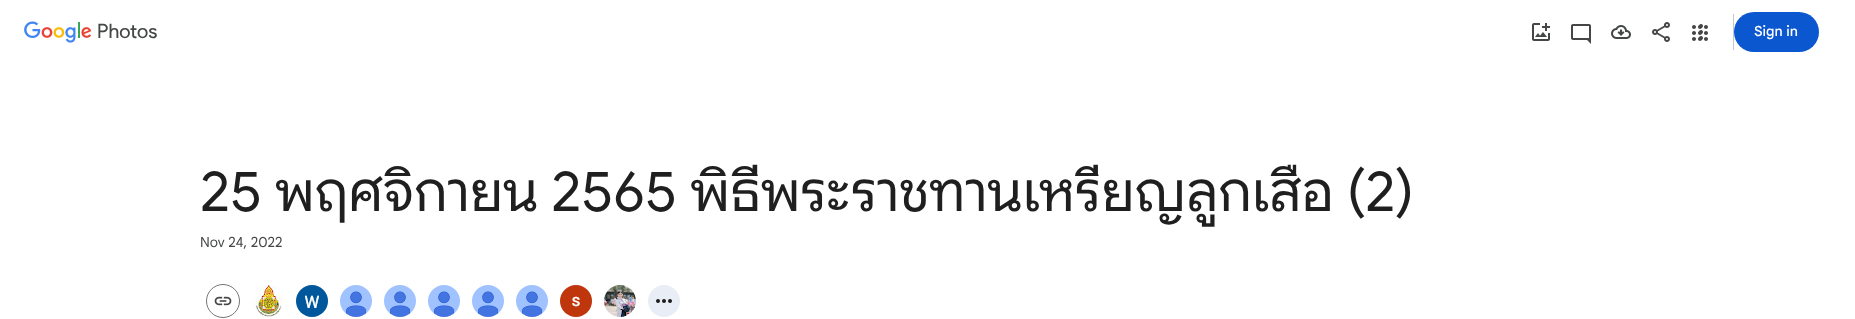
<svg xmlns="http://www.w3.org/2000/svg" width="1855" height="319">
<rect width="100%" height="100%" fill="#fff"/>
<image x="24" y="21" width="68" height="22" href="media/1.png"/>
<text x="97" y="38" style="font-family:Product Sans;font-size:20px;fill:#444746">Photos</text>
<image x="1532" y="23" width="18" height="18" href="media/2.png"/>
<image x="1571" y="24" width="20" height="20" href="media/3.png"/>
<image x="1611" y="25" width="20" height="14" href="media/4.png"/>
<image x="1652" y="22" width="18" height="20" href="media/5.png"/>
<image x="1699" y="24" width="4" height="16" href="media/6.png"/>
<rect x="1733" y="14" width="1" height="36" fill="#c4c7c5"/>
<text x="200" y="211" style="font-family:Google Sans;font-size:57px;fill:#1f1f1f">25 พฤศจิกายน 2565 พิธีพระราชทานเหรียญลูกเสือ (2)</text>
<text x="200" y="247" style="font-family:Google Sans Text;font-size:14px;fill:#444746">Nov 24, 2022</text>
<circle cx="223" cy="301" r="16.5" fill="none" stroke="#747775"/>
<image x="214" y="296" width="18" height="10" href="media/7.png"/>
<image x="252" y="285" width="32" height="32" href="media/8.png"/>
<image x="296" y="285" width="32" height="32" href="media/9.png"/>
<image x="340" y="285" width="32" height="32" href="media/10.png"/>
<image x="384" y="285" width="32" height="32" href="media/10.png"/>
<image x="428" y="285" width="32" height="32" href="media/10.png"/>
<image x="472" y="285" width="32" height="32" href="media/10.png"/>
<image x="516" y="285" width="32" height="32" href="media/10.png"/>
<image x="560" y="285" width="32" height="32" href="media/11.png"/>
<image x="604" y="285" width="32" height="32" href="media/12.png"/>
<circle cx="664" cy="301" r="16" fill="#e9eef6"/>
<image x="656" y="299" width="16" height="4" href="media/13.png"/>
<image x="1692" y="25" width="16" height="16" href="media/14.png"/>
<rect x="1734" y="12" width="85" height="40" rx="20" fill="#0b57d0"/>
<text x="1754" y="36" style="font-family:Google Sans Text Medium;font-size:14px;font-weight:500;fill:#fff">Sign in</text>
</svg>
